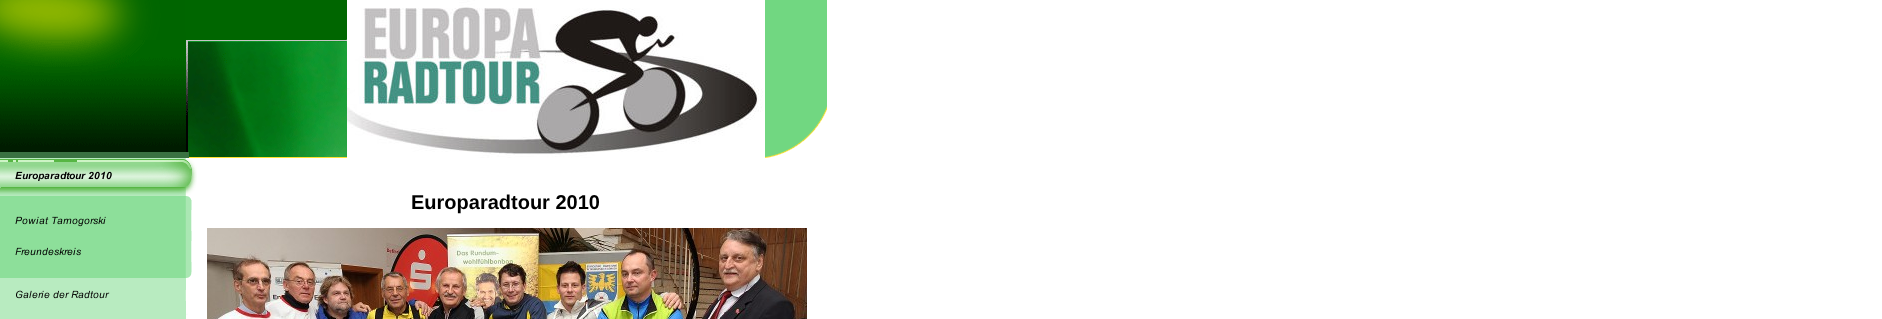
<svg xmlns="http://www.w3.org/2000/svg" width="1882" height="319">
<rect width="100%" height="100%" fill="#fff"/>
<rect x="765" width="62" height="106" fill="#71d781"/>
<image x="0" y="0" width="347" height="40" href="media/1.png"/>
<image x="347" y="0" width="418" height="158" href="media/2.png"/>
<image x="765" y="106" width="62" height="52" href="media/3.png"/>
<image x="0" y="40" width="347" height="118" href="media/4.png"/>
<rect y="278" width="186" height="41" fill="#b8ebc0"/>
<image x="0" y="158" width="186" height="1" href="media/5.png"/>
<image x="0" y="159" width="197" height="37" href="media/6.png"/>
<image x="0" y="196" width="192" height="4" href="media/7.png"/>
<image x="0" y="200" width="192" height="10" href="media/8.png"/>
<image x="0" y="210" width="192" height="21" href="media/9.png"/>
<image x="0" y="231" width="192" height="10" href="media/8.png"/>
<image x="0" y="241" width="192" height="21" href="media/10.png"/>
<image x="0" y="262" width="192" height="10" href="media/8.png"/>
<image x="0" y="272" width="192" height="6" href="media/11.png"/>
<image x="16" y="290" width="172" height="25" href="media/12.png"/>
<text x="411" y="209" style="font-family:Liberation Sans;font-size:20px;font-weight:bold;fill:#000">Europaradtour 2010</text>
<image x="207" y="228" width="600" height="91" href="media/13.png"/>
</svg>
